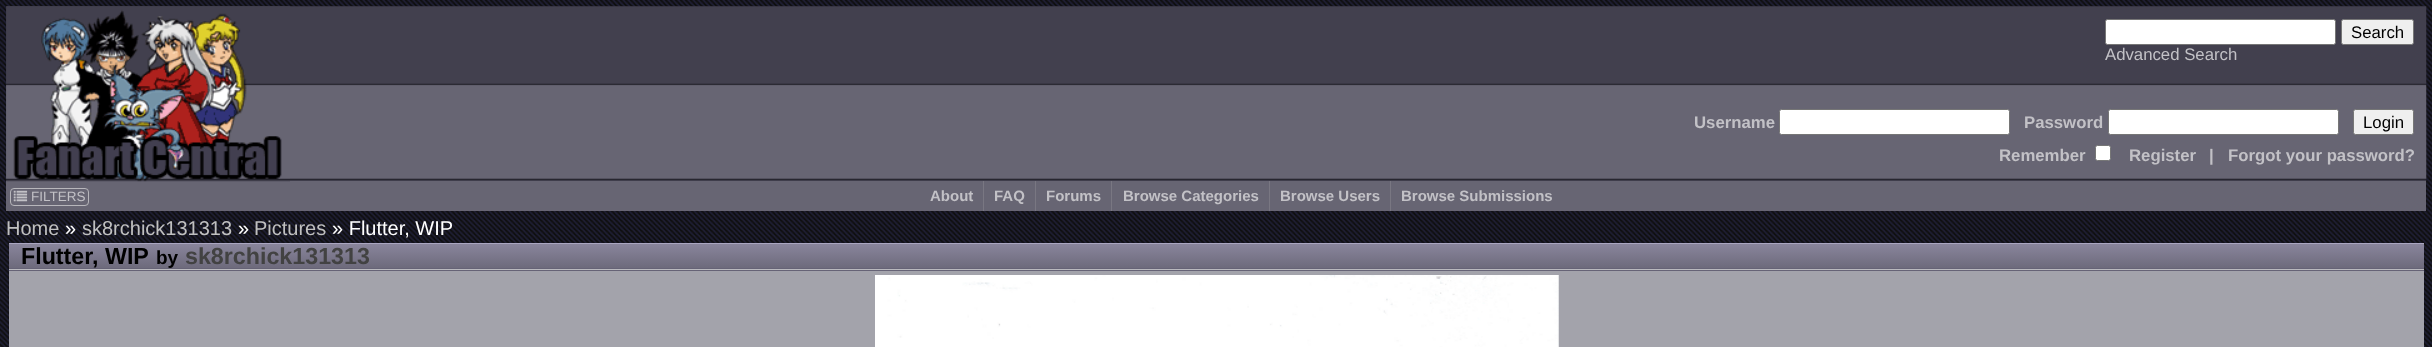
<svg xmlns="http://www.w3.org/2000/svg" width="2432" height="347">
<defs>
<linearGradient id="g1" gradientUnits="userSpaceOnUse" x1="1216" y1="242" x2="1216" y2="270"><stop offset="0.01" stop-color="#8b879e"/><stop offset="1" stop-color="#6b6879"/></linearGradient>
</defs>
<rect width="100%" height="100%" fill="#fff"/>
<image x="0" y="0" width="2432" height="347" href="media/1.png"/>
<image x="6" y="6" width="2421" height="176" href="media/2.png"/>
<rect x="6" y="181" width="2420" height="30" fill="#676573"/>
<image x="6" y="6" width="284" height="176" href="media/3.png"/>
<rect x="2105.5" y="19.5" width="230" height="25" rx="2" fill="#fff" stroke="#767676"/>
<rect x="2341.5" y="19.5" width="72" height="25" rx="2" fill="#efefef" stroke="#767676"/>
<text x="2351" y="38" style="font-family:Liberation Sans;font-size:16.75px;fill:#000">Search</text>
<text x="2105" y="60" style="font-family:Liberation Sans;font-size:16.75px;fill:#c2c1c6">Advanced Search</text>
<text x="1694" y="128" style="font-family:Liberation Sans;font-size:16.75px;font-weight:bold;fill:#c2c1c6">Username</text>
<rect x="1779.5" y="109.5" width="230" height="25" rx="2" fill="#fff" stroke="#767676"/>
<text x="2024" y="128" style="font-family:Liberation Sans;font-size:16.75px;font-weight:bold;fill:#c2c1c6">Password</text>
<rect x="2108.5" y="109.5" width="230" height="25" rx="2" fill="#fff" stroke="#767676"/>
<rect x="2353.5" y="109.5" width="60" height="25" rx="2" fill="#efefef" stroke="#767676"/>
<text x="2363" y="128" style="font-family:Liberation Sans;font-size:16.75px;fill:#000">Login</text>
<text x="1999" y="161" style="font-family:Liberation Sans;font-size:16.75px;font-weight:bold;fill:#c2c1c6">Remember</text>
<rect x="2095.5" y="145.5" width="15" height="15" rx="2" fill="#fff" stroke="#767676"/>
<text x="2129" y="161" style="font-family:Liberation Sans;font-size:16.75px;font-weight:bold;fill:#c2c1c6">Register</text>
<text x="2209" y="161" style="font-family:Liberation Sans;font-size:16.75px;font-weight:bold;fill:#c2c1c6">|</text>
<text x="2228" y="161" style="font-family:Liberation Sans;font-size:16.75px;font-weight:bold;fill:#c2c1c6">Forgot your password?</text>
<rect x="10.5" y="188.5" width="78" height="17" rx="3.5" fill="none" stroke="#b7b6bb"/>
<image x="13" y="190" width="15" height="12" href="media/4.png"/>
<text x="31" y="201" style="font-family:Liberation Sans;font-size:13.5px;fill:#c2c1c6">FILTERS</text>
<rect x="983" y="181" width="1" height="30" fill="#797782"/>
<text x="930" y="201" style="font-family:Liberation Sans;font-size:15px;font-weight:bold;fill:#c2c1c6">About</text>
<rect x="1035" y="181" width="1" height="30" fill="#797782"/>
<text x="994" y="201" style="font-family:Liberation Sans;font-size:15px;font-weight:bold;fill:#c2c1c6">FAQ</text>
<rect x="1111" y="181" width="1" height="30" fill="#797782"/>
<text x="1046" y="201" style="font-family:Liberation Sans;font-size:15px;font-weight:bold;fill:#c2c1c6">Forums</text>
<rect x="1269" y="181" width="1" height="30" fill="#797782"/>
<text x="1123" y="201" style="font-family:Liberation Sans;font-size:15px;font-weight:bold;fill:#c2c1c6">Browse Categories</text>
<rect x="1390" y="181" width="1" height="30" fill="#797782"/>
<text x="1280" y="201" style="font-family:Liberation Sans;font-size:15px;font-weight:bold;fill:#c2c1c6">Browse Users</text>
<text x="1401" y="201" style="font-family:Liberation Sans;font-size:15px;font-weight:bold;fill:#c2c1c6">Browse Submissions</text>
<text x="6" y="235" style="font-family:Liberation Sans;font-size:20px;fill:#c0c0c0">Home</text>
<text x="65" y="235" style="font-family:Liberation Sans;font-size:20px;fill:#fff">»</text>
<text x="82" y="235" style="font-family:Liberation Sans;font-size:20px;fill:#c0c0c0">sk8rchick131313</text>
<text x="238" y="235" style="font-family:Liberation Sans;font-size:20px;fill:#fff">»</text>
<text x="254" y="235" style="font-family:Liberation Sans;font-size:20px;fill:#c0c0c0">Pictures</text>
<text x="332" y="235" style="font-family:Liberation Sans;font-size:20px;fill:#fff">» Flutter, WIP</text>
<rect x="9" y="244" width="2415" height="24" fill="url(#g1)"/>
<rect x="9" y="243" width="2415" height="1" fill="#aaa6c0"/>
<rect x="9" y="268" width="2415" height="3" fill="#666376"/>
<rect x="9" y="269" width="2415" height="1" fill="#bab9be"/>
<text x="21" y="264" style="font-family:Liberation Sans;font-size:23.25px;font-weight:bold;fill:#000">Flutter, WIP</text>
<text x="156" y="264" style="font-family:Liberation Sans;font-size:19px;font-weight:bold;fill:#000">by</text>
<text x="185" y="264" style="font-family:Liberation Sans;font-size:23.25px;font-weight:bold;fill:#424242">sk8rchick131313</text>
<rect x="9" y="271" width="2415" height="76" fill="#a3a3ab"/>
<image x="875" y="275" width="684" height="72" href="media/5.png"/>
</svg>
